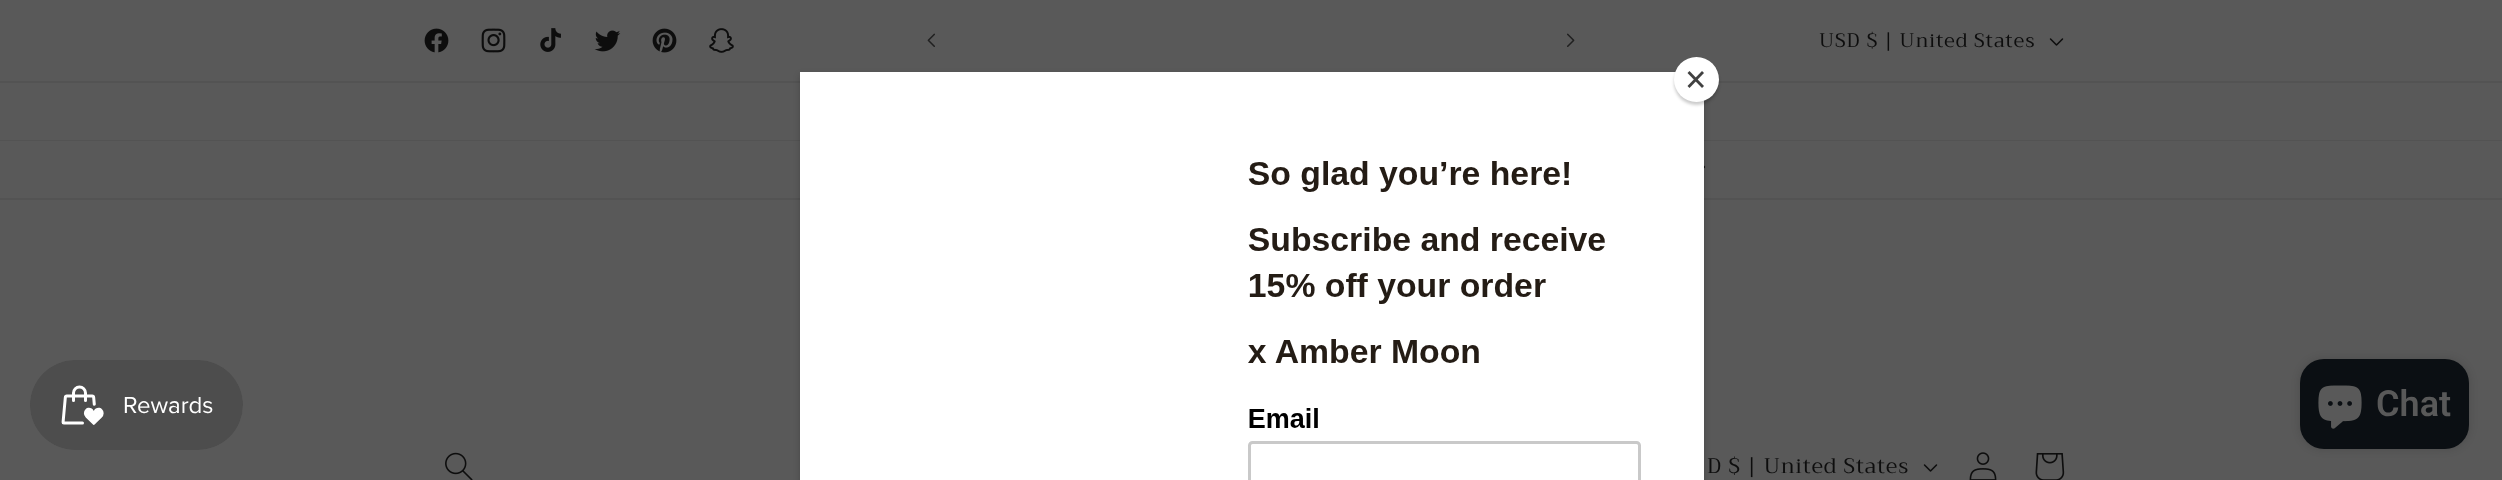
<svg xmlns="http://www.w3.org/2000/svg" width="2502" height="480">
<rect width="100%" height="100%" fill="#595959"/>
<rect y="81" width="2502" height="2" fill="#535353"/>
<image x="424" y="28" width="25" height="25" href="media/1.png"/>
<image x="481" y="28" width="25" height="25" href="media/2.png"/>
<image x="540" y="28" width="21" height="24" href="media/3.png"/>
<image x="594" y="30" width="27" height="22" href="media/4.png"/>
<image x="652" y="28" width="25" height="25" href="media/5.png"/>
<image x="709" y="28" width="25" height="25" href="media/6.png"/>
<image x="927" y="33" width="8" height="14" href="media/7.png"/>
<image x="1567" y="33" width="8" height="14" href="media/8.png"/>
<text x="1819" y="47" style="font-family:Trirong;font-size:19.5px;letter-spacing:0.9px;fill:#0d0d0d">USD $ | United States</text>
<image x="2049" y="38" width="15" height="8" href="media/9.png"/>
<rect y="140" width="2502" height="1" fill="#535353"/>
<rect y="198" width="2502" height="2" fill="#535353"/>
<image x="1704" y="165" width="2" height="4" href="media/11.png"/>
<rect x="800" y="75" width="904" height="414" fill="#00000033" filter="blur(3px)"/>
<image x="800" y="72" width="904" height="408" href="media/10.png"/>
<rect x="1674" y="60" width="45" height="45" rx="22.5" fill="#00000033" filter="blur(1.5px)"/>
<circle cx="1696.5" cy="79.5" r="22.5" fill="#fff"/>
<path d="M1702 71l2 2l-14.5 15l-2-2z" fill="#414141"/>
<path d="M1687.5 73l2-2l14.5 15l-2 2z" fill="#414141"/>
<image x="30" y="360" width="213" height="90" href="media/12.png"/>
<rect x="2300" y="359" width="169" height="90" rx="24" fill="#00000026" filter="blur(4px)"/>
<rect x="2300" y="359" width="169" height="90" rx="24" fill="#0b0f13"/>
<image x="2318" y="385" width="44" height="44" href="media/13.png"/>
<text x="2376" y="416" style="font-family:Roboto;font-size:36px;font-weight:600;fill:#595959">Chat</text>
<image x="445" y="452" width="28" height="28" href="media/14.png"/>
<text x="1707" y="473" style="font-family:Trirong;font-size:21px;letter-spacing:0.9px;fill:#0d0d0d">D $ | United States</text>
<image x="1923" y="464" width="15" height="8" href="media/9.png"/>
<image x="1969" y="452" width="28" height="28" href="media/15.png"/>
<image x="2035" y="453" width="30" height="27" href="media/16.png"/>
</svg>
